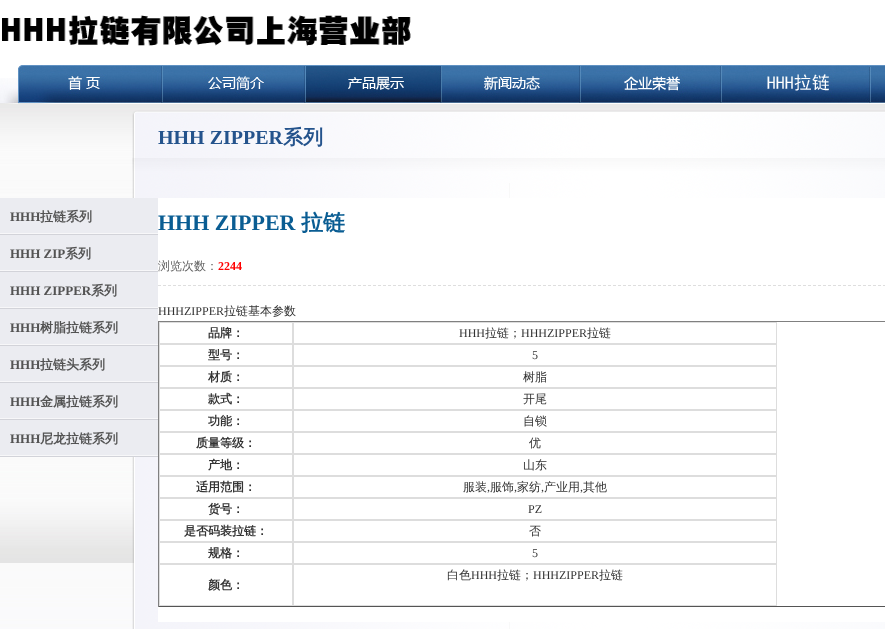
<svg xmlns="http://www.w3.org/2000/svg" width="885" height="629">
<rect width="100%" height="100%" fill="#fff"/>
<image x="0" y="104" width="885" height="525" href="media/1.png"/>
<image x="2" y="15" width="409" height="31" href="media/2.png"/>
<image x="0" y="78" width="18" height="26" href="media/3.png"/>
<image x="18" y="65" width="145" height="39" href="media/4.png"/>
<image x="163" y="65" width="143" height="39" href="media/5.png"/>
<image x="306" y="65" width="136" height="39" href="media/6.png"/>
<image x="442" y="65" width="139" height="39" href="media/7.png"/>
<image x="581" y="65" width="141" height="39" href="media/8.png"/>
<image x="722" y="65" width="149" height="39" href="media/9.png"/>
<image x="871" y="65" width="14" height="39" href="media/10.png"/>
<image x="132" y="110" width="753" height="73" href="media/11.png"/>
<text x="158" y="144" style="font-family:Liberation Serif;font-size:20px;font-weight:bold;fill:#24538c">HHH ZIPPER</text>
<text x="283" y="144" style="font-family:WenQuanYi Zen Hei;font-size:20px;font-weight:bold;fill:#24538c">系列</text>
<image x="132" y="183" width="753" height="446" href="media/12.png"/>
<image x="0" y="198" width="158" height="37" href="media/13.png"/>
<text x="10" y="221" style="font-family:Liberation Serif;font-size:13px;font-weight:bold;fill:#535353">HHH</text>
<text x="40" y="221" style="font-family:WenQuanYi Zen Hei;font-size:13px;font-weight:bold;fill:#535353">拉链系列</text>
<image x="0" y="235" width="158" height="37" href="media/13.png"/>
<text x="10" y="258" style="font-family:Liberation Serif;font-size:13px;font-weight:bold;fill:#535353">HHH ZIP</text>
<text x="65" y="258" style="font-family:WenQuanYi Zen Hei;font-size:13px;font-weight:bold;fill:#535353">系列</text>
<image x="0" y="272" width="158" height="37" href="media/13.png"/>
<text x="10" y="295" style="font-family:Liberation Serif;font-size:13px;font-weight:bold;fill:#535353">HHH ZIPPER</text>
<text x="91" y="295" style="font-family:WenQuanYi Zen Hei;font-size:13px;font-weight:bold;fill:#535353">系列</text>
<image x="0" y="309" width="158" height="37" href="media/13.png"/>
<text x="10" y="332" style="font-family:Liberation Serif;font-size:13px;font-weight:bold;fill:#535353">HHH</text>
<text x="40" y="332" style="font-family:WenQuanYi Zen Hei;font-size:13px;font-weight:bold;fill:#535353">树脂拉链系列</text>
<image x="0" y="346" width="158" height="37" href="media/13.png"/>
<text x="10" y="369" style="font-family:Liberation Serif;font-size:13px;font-weight:bold;fill:#535353">HHH</text>
<text x="40" y="369" style="font-family:WenQuanYi Zen Hei;font-size:13px;font-weight:bold;fill:#535353">拉链头系列</text>
<image x="0" y="383" width="158" height="37" href="media/13.png"/>
<text x="10" y="406" style="font-family:Liberation Serif;font-size:13px;font-weight:bold;fill:#535353">HHH</text>
<text x="40" y="406" style="font-family:WenQuanYi Zen Hei;font-size:13px;font-weight:bold;fill:#535353">金属拉链系列</text>
<image x="0" y="420" width="158" height="37" href="media/13.png"/>
<text x="10" y="443" style="font-family:Liberation Serif;font-size:13px;font-weight:bold;fill:#535353">HHH</text>
<text x="40" y="443" style="font-family:WenQuanYi Zen Hei;font-size:13px;font-weight:bold;fill:#535353">尼龙拉链系列</text>
<rect x="158" y="198" width="727" height="424" fill="#fff"/>
<text x="158" y="230" style="font-family:Liberation Serif;font-size:22px;font-weight:bold;fill:#0a5d93">HHH ZIPPER</text>
<text x="301" y="230" style="font-family:WenQuanYi Zen Hei;font-size:22px;font-weight:bold;fill:#0a5d93">拉链</text>
<path d="M158 285.5h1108" fill="none" stroke="#dedede" stroke-dasharray="3 2"/>
<text x="158" y="270" style="font-family:WenQuanYi Zen Hei;font-size:12px;font-weight:500;fill:#636363">浏览次数：</text>
<text x="218" y="270" style="font-family:Liberation Serif;font-size:12px;font-weight:bold;fill:#f00">2244</text>
<text x="158" y="315" style="font-family:Liberation Serif;font-size:12px;fill:#333">HHHZIPPER</text>
<text x="224" y="315" style="font-family:WenQuanYi Zen Hei;font-size:12px;font-weight:500;fill:#333">拉链基本参数</text>
<rect x="158" y="321" width="727" height="1" fill="#808080"/>
<rect x="158" y="606" width="727" height="1" fill="#555"/>
<rect x="158" y="321" width="1" height="286" fill="#808080"/>
<rect x="159.5" y="322.5" width="133" height="21" fill="none" stroke="#ddd"/>
<text x="208" y="337" style="font-family:WenQuanYi Zen Hei;font-size:12px;font-weight:bold;fill:#333">品牌：</text>
<rect x="293.5" y="322.5" width="483" height="21" fill="none" stroke="#ddd"/>
<text x="459" y="337" style="font-family:Liberation Serif;font-size:12px;fill:#333">HHH</text>
<text x="485" y="337" style="font-family:WenQuanYi Zen Hei;font-size:12px;font-weight:500;fill:#333">拉链；</text>
<text x="521" y="337" style="font-family:Liberation Serif;font-size:12px;fill:#333">HHHZIPPER</text>
<text x="587" y="337" style="font-family:WenQuanYi Zen Hei;font-size:12px;font-weight:500;fill:#333">拉链</text>
<rect x="159.5" y="344.5" width="133" height="21" fill="none" stroke="#ddd"/>
<text x="208" y="359" style="font-family:WenQuanYi Zen Hei;font-size:12px;font-weight:bold;fill:#333">型号：</text>
<rect x="293.5" y="344.5" width="483" height="21" fill="none" stroke="#ddd"/>
<text x="532" y="359" style="font-family:Liberation Serif;font-size:12px;fill:#333">5</text>
<rect x="159.5" y="366.5" width="133" height="21" fill="none" stroke="#ddd"/>
<text x="208" y="381" style="font-family:WenQuanYi Zen Hei;font-size:12px;font-weight:bold;fill:#333">材质：</text>
<rect x="293.5" y="366.5" width="483" height="21" fill="none" stroke="#ddd"/>
<text x="523" y="381" style="font-family:WenQuanYi Zen Hei;font-size:12px;font-weight:500;fill:#333">树脂</text>
<rect x="159.5" y="388.5" width="133" height="21" fill="none" stroke="#ddd"/>
<text x="208" y="403" style="font-family:WenQuanYi Zen Hei;font-size:12px;font-weight:bold;fill:#333">款式：</text>
<rect x="293.5" y="388.5" width="483" height="21" fill="none" stroke="#ddd"/>
<text x="523" y="403" style="font-family:WenQuanYi Zen Hei;font-size:12px;font-weight:500;fill:#333">开尾</text>
<rect x="159.5" y="410.5" width="133" height="21" fill="none" stroke="#ddd"/>
<text x="208" y="425" style="font-family:WenQuanYi Zen Hei;font-size:12px;font-weight:bold;fill:#333">功能：</text>
<rect x="293.5" y="410.5" width="483" height="21" fill="none" stroke="#ddd"/>
<text x="523" y="425" style="font-family:WenQuanYi Zen Hei;font-size:12px;font-weight:500;fill:#333">自锁</text>
<rect x="159.5" y="432.5" width="133" height="21" fill="none" stroke="#ddd"/>
<text x="196" y="447" style="font-family:WenQuanYi Zen Hei;font-size:12px;font-weight:bold;fill:#333">质量等级：</text>
<rect x="293.5" y="432.5" width="483" height="21" fill="none" stroke="#ddd"/>
<text x="529" y="447" style="font-family:WenQuanYi Zen Hei;font-size:12px;font-weight:500;fill:#333">优</text>
<rect x="159.5" y="454.5" width="133" height="21" fill="none" stroke="#ddd"/>
<text x="208" y="469" style="font-family:WenQuanYi Zen Hei;font-size:12px;font-weight:bold;fill:#333">产地：</text>
<rect x="293.5" y="454.5" width="483" height="21" fill="none" stroke="#ddd"/>
<text x="523" y="469" style="font-family:WenQuanYi Zen Hei;font-size:12px;font-weight:500;fill:#333">山东</text>
<rect x="159.5" y="476.5" width="133" height="21" fill="none" stroke="#ddd"/>
<text x="196" y="491" style="font-family:WenQuanYi Zen Hei;font-size:12px;font-weight:bold;fill:#333">适用范围：</text>
<rect x="293.5" y="476.5" width="483" height="21" fill="none" stroke="#ddd"/>
<text x="463" y="491" style="font-family:WenQuanYi Zen Hei;font-size:12px;font-weight:500;fill:#333">服装</text>
<text x="487" y="491" style="font-family:Liberation Serif;font-size:12px;fill:#333">,</text>
<text x="490" y="491" style="font-family:WenQuanYi Zen Hei;font-size:12px;font-weight:500;fill:#333">服饰</text>
<text x="514" y="491" style="font-family:Liberation Serif;font-size:12px;fill:#333">,</text>
<text x="517" y="491" style="font-family:WenQuanYi Zen Hei;font-size:12px;font-weight:500;fill:#333">家纺</text>
<text x="541" y="491" style="font-family:Liberation Serif;font-size:12px;fill:#333">,</text>
<text x="544" y="491" style="font-family:WenQuanYi Zen Hei;font-size:12px;font-weight:500;fill:#333">产业用</text>
<text x="580" y="491" style="font-family:Liberation Serif;font-size:12px;fill:#333">,</text>
<text x="583" y="491" style="font-family:WenQuanYi Zen Hei;font-size:12px;font-weight:500;fill:#333">其他</text>
<rect x="159.5" y="498.5" width="133" height="21" fill="none" stroke="#ddd"/>
<text x="208" y="513" style="font-family:WenQuanYi Zen Hei;font-size:12px;font-weight:bold;fill:#333">货号：</text>
<rect x="293.5" y="498.5" width="483" height="21" fill="none" stroke="#ddd"/>
<text x="528" y="513" style="font-family:Liberation Serif;font-size:12px;fill:#333">PZ</text>
<rect x="159.5" y="520.5" width="133" height="21" fill="none" stroke="#ddd"/>
<text x="184" y="535" style="font-family:WenQuanYi Zen Hei;font-size:12px;font-weight:bold;fill:#333">是否码装拉链：</text>
<rect x="293.5" y="520.5" width="483" height="21" fill="none" stroke="#ddd"/>
<text x="529" y="535" style="font-family:WenQuanYi Zen Hei;font-size:12px;font-weight:500;fill:#333">否</text>
<rect x="159.5" y="542.5" width="133" height="21" fill="none" stroke="#ddd"/>
<text x="208" y="557" style="font-family:WenQuanYi Zen Hei;font-size:12px;font-weight:bold;fill:#333">规格：</text>
<rect x="293.5" y="542.5" width="483" height="21" fill="none" stroke="#ddd"/>
<text x="532" y="557" style="font-family:Liberation Serif;font-size:12px;fill:#333">5</text>
<rect x="293.5" y="564.5" width="483" height="41" fill="none" stroke="#ddd"/>
<text x="447" y="579" style="font-family:WenQuanYi Zen Hei;font-size:12px;font-weight:500;fill:#333">白色</text>
<text x="471" y="579" style="font-family:Liberation Serif;font-size:12px;fill:#333">HHH</text>
<text x="497" y="579" style="font-family:WenQuanYi Zen Hei;font-size:12px;font-weight:500;fill:#333">拉链；</text>
<text x="533" y="579" style="font-family:Liberation Serif;font-size:12px;fill:#333">HHHZIPPER</text>
<text x="599" y="579" style="font-family:WenQuanYi Zen Hei;font-size:12px;font-weight:500;fill:#333">拉链</text>
<rect x="159.5" y="564.5" width="133" height="41" fill="none" stroke="#ddd"/>
<text x="208" y="589" style="font-family:WenQuanYi Zen Hei;font-size:12px;font-weight:bold;fill:#333">颜色：</text>
</svg>
